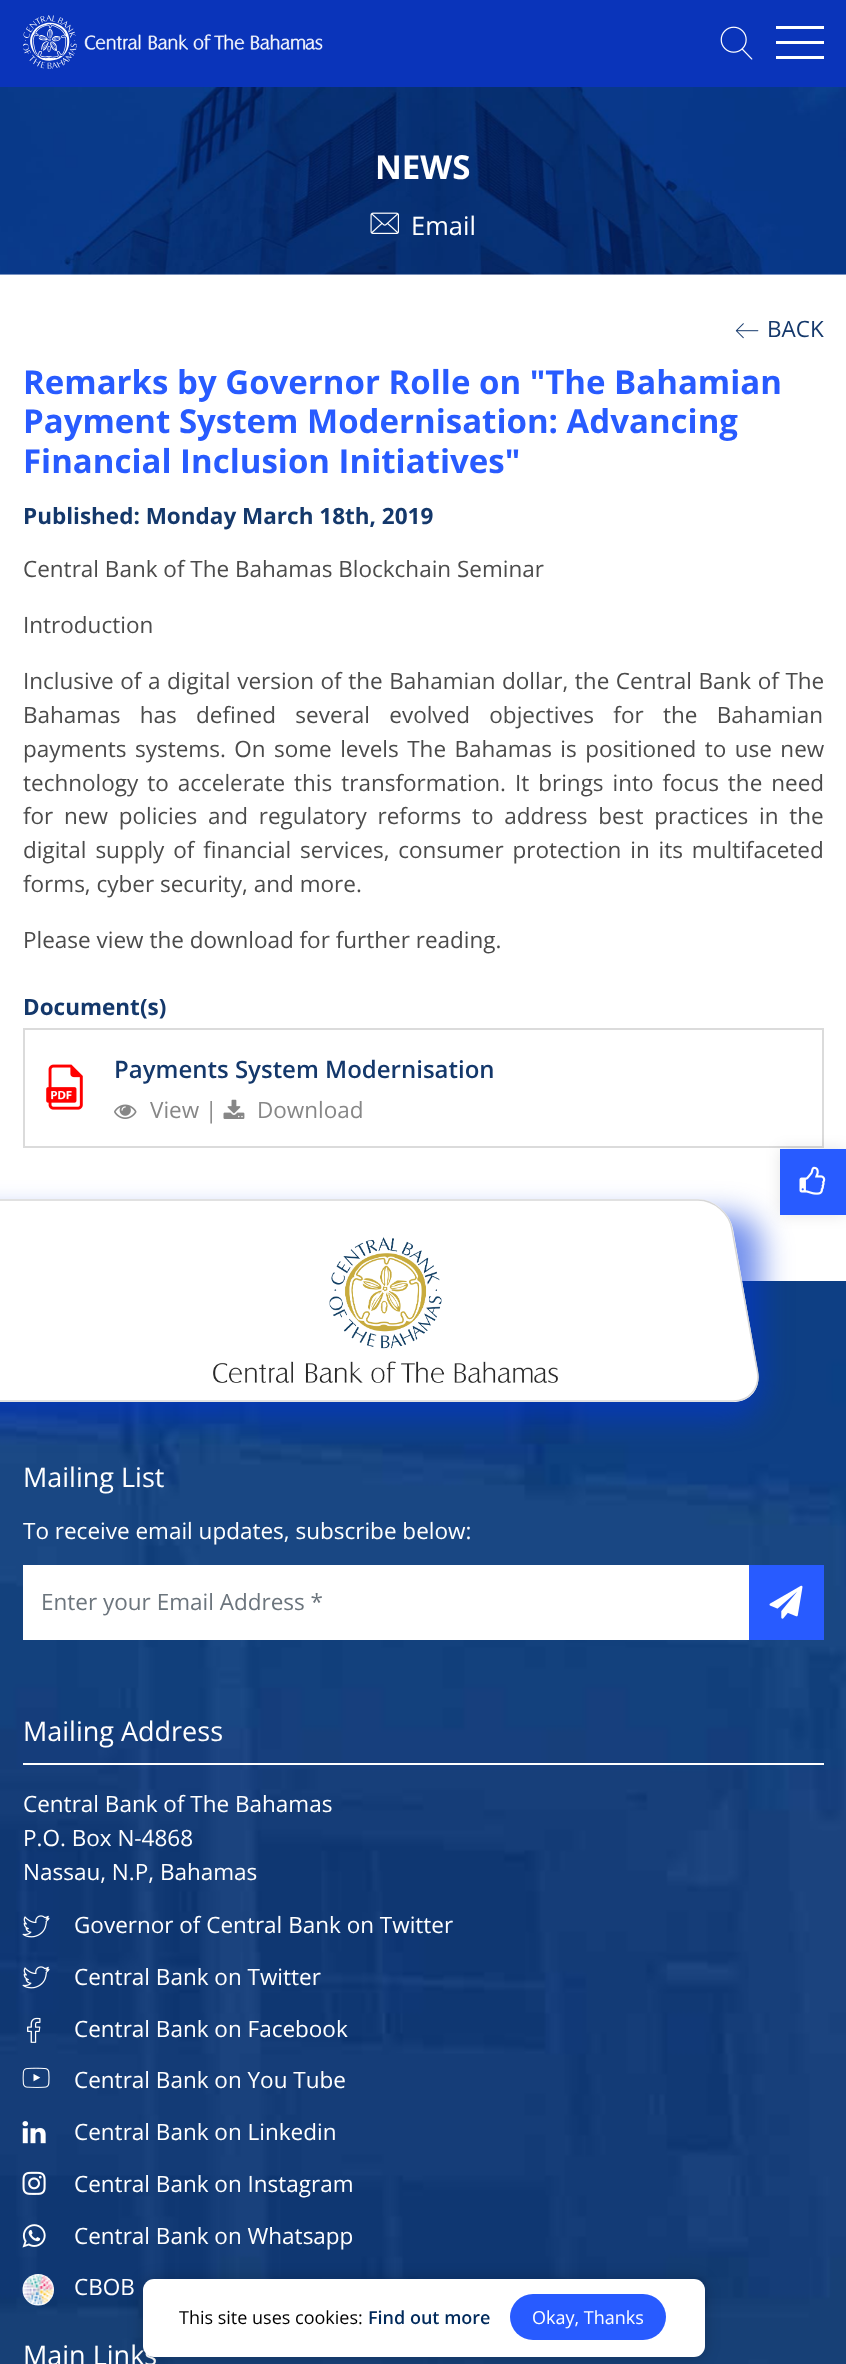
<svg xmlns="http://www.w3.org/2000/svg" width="846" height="2364">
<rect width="100%" height="100%" fill="#fff"/>
<rect y="274" width="846" height="1" fill="#e6eaf8"/>
<rect width="846" height="87" fill="#0a34ba"/>
<image x="23" y="15" width="300" height="54" href="media/1.png"/>
<image x="720" y="26" width="33" height="34" href="media/2.png"/>
<rect x="776" y="56" width="48" height="3" fill="#fff"/>
<rect x="776" y="26" width="48" height="3" fill="#fff"/>
<rect x="776" y="41" width="48" height="3" fill="#fff"/>
<image x="0" y="87" width="846" height="188" href="media/3.png"/>
<text x="375" y="179" style="font-family:Open Sans;font-size:33px;font-weight:bold;fill:#fff">NEWS</text>
<image x="370" y="212" width="29" height="22" href="media/4.png"/>
<text x="411" y="235" style="font-family:Open Sans;font-size:25.5px;fill:#fff">Email</text>
<image x="735" y="323" width="24" height="16" href="media/5.png"/>
<text x="767" y="337" style="font-family:Open Sans;font-size:22.5px;fill:#14386b">BACK</text>
<text x="23" y="394" style="font-family:Open Sans;font-size:33px;font-weight:bold;fill:#285bff">Remarks by Governor Rolle on "The Bahamian</text>
<text x="23" y="433" style="font-family:Open Sans;font-size:33px;font-weight:bold;fill:#285bff">Payment System Modernisation: Advancing</text>
<text x="23" y="473" style="font-family:Open Sans;font-size:33px;font-weight:bold;fill:#285bff">Financial Inclusion Initiatives"</text>
<text x="23" y="524" style="font-family:Open Sans;font-size:22.5px;font-weight:bold;fill:#14386b">Published: Monday March 18th, 2019</text>
<text x="23" y="577" style="font-family:Open Sans;font-size:22.5px;fill:#4b4b4b">Central Bank of The Bahamas Blockchain Seminar</text>
<text x="23" y="633" style="font-family:Open Sans;font-size:22.5px;fill:#4b4b4b">Introduction</text>
<text x="23" y="689" word-spacing="0.75" style="font-family:Open Sans;font-size:22.5px;fill:#4b4b4b">Inclusive of a digital version of the Bahamian dollar, the Central Bank of The</text>
<text x="23" y="723" word-spacing="13.5" style="font-family:Open Sans;font-size:22.5px;fill:#4b4b4b">Bahamas has defined several evolved objectives for the Bahamian</text>
<text x="23" y="757" word-spacing="2.6" style="font-family:Open Sans;font-size:22.5px;fill:#4b4b4b">payments systems. On some levels The Bahamas is positioned to use new</text>
<text x="23" y="791" word-spacing="3.1" style="font-family:Open Sans;font-size:22.5px;fill:#4b4b4b">technology to accelerate this transformation. It brings into focus the need</text>
<text x="23" y="824" word-spacing="4.9" style="font-family:Open Sans;font-size:22.5px;fill:#4b4b4b">for new policies and regulatory reforms to address best practices in the</text>
<text x="23" y="858" word-spacing="3" style="font-family:Open Sans;font-size:22.5px;fill:#4b4b4b">digital supply of financial services, consumer protection in its multifaceted</text>
<text x="23" y="892" style="font-family:Open Sans;font-size:22.5px;fill:#4b4b4b">forms, cyber security, and more.</text>
<text x="23" y="948" style="font-family:Open Sans;font-size:22.5px;fill:#4b4b4b">Please view the download for further reading.</text>
<text x="23" y="1015" style="font-family:Open Sans;font-size:22.5px;font-weight:bold;fill:#14386b">Document(s)</text>
<rect x="24" y="1029" width="799" height="118" fill="none" stroke="#dbdbdb" stroke-width="2"/>
<image x="46" y="1064" width="37" height="46" href="media/6.png"/>
<text x="114" y="1078" style="font-family:Open Sans;font-size:24px;font-weight:600;fill:#14386b">Payments System Modernisation</text>
<image x="114" y="1104" width="23" height="15" href="media/7.png"/>
<text x="150" y="1118" style="font-family:Open Sans;font-size:22.5px;fill:#878787">View |</text>
<image x="223" y="1099" width="22" height="20" href="media/8.png"/>
<text x="257" y="1118" style="font-family:Open Sans;font-size:22.5px;fill:#878787">Download</text>
<image x="0" y="1281" width="846" height="1083" href="media/10.png"/>
<rect x="-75" y="1215" width="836" height="203" rx="30" fill="#0035df8c" filter="blur(15px)"/>
<path d="M-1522 1199h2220c16 0 32 14 35 30l25 143c3 17-8 30-25 30h-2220z" fill="#fff"/>
<path d="M-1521.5 1200h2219.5c16 0 31.5 13.5 34 29.5l25.5 142.5c2.5 16-8 29-24.5 29h-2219z" fill="none" stroke="#d7d7d7" stroke-width="1.5"/>
<rect x="780" y="1149" width="66" height="66" fill="#0000001a" filter="blur(7.5px)"/>
<rect x="780" y="1149" width="66" height="66" fill="#285bff"/>
<image x="799" y="1166" width="27" height="29" href="media/9.png"/>
<image x="213" y="1237" width="345" height="146" href="media/11.png"/>
<text x="23" y="1487" style="font-family:Open Sans;font-size:27px;fill:#fff">Mailing List</text>
<text x="23" y="1539" style="font-family:Open Sans;font-size:22.5px;fill:#fff">To receive email updates, subscribe below:</text>
<rect x="23" y="1565" width="726" height="75" fill="#fff"/>
<text x="41" y="1610" style="font-family:Open Sans;font-size:22.5px;fill:#6c757d">Enter your Email Address *</text>
<rect x="749" y="1565" width="75" height="75" fill="#285bff"/>
<image x="769" y="1585" width="34" height="34" href="media/12.png"/>
<rect x="23" y="1763" width="801" height="2" fill="#fff"/>
<text x="23" y="1741" style="font-family:Open Sans;font-size:27px;fill:#fff">Mailing Address</text>
<text x="23" y="1812" style="font-family:Open Sans;font-size:22.5px;fill:#fff">Central Bank of The Bahamas</text>
<text x="23" y="1846" style="font-family:Open Sans;font-size:22.5px;fill:#fff">P.O. Box N-4868</text>
<text x="23" y="1880" style="font-family:Open Sans;font-size:22.5px;fill:#fff">Nassau, N.P, Bahamas</text>
<image x="22" y="1915" width="28" height="23" href="media/13.png"/>
<text x="74" y="1933" style="font-family:Open Sans;font-size:22.5px;fill:#fff">Governor of Central Bank on Twitter</text>
<image x="22" y="1966" width="28" height="23" href="media/14.png"/>
<text x="74" y="1985" style="font-family:Open Sans;font-size:22.5px;fill:#fff">Central Bank on Twitter</text>
<image x="27" y="2017" width="14" height="26" href="media/15.png"/>
<text x="74" y="2037" style="font-family:Open Sans;font-size:22.5px;fill:#fff">Central Bank on Facebook</text>
<image x="22" y="2067" width="28" height="21" href="media/16.png"/>
<text x="74" y="2088" style="font-family:Open Sans;font-size:22.5px;fill:#fff">Central Bank on You Tube</text>
<image x="22" y="2121" width="24" height="23" href="media/17.png"/>
<text x="74" y="2140" style="font-family:Open Sans;font-size:22.5px;fill:#fff">Central Bank on Linkedin</text>
<image x="22" y="2171" width="24" height="24" href="media/18.png"/>
<text x="74" y="2192" style="font-family:Open Sans;font-size:22.5px;fill:#fff">Central Bank on Instagram</text>
<image x="22" y="2224" width="24" height="24" href="media/19.png"/>
<text x="74" y="2244" style="font-family:Open Sans;font-size:22.5px;fill:#fff">Central Bank on Whatsapp</text>
<image x="22" y="2274" width="32" height="32" href="media/20.png"/>
<text x="74" y="2295" style="font-family:Open Sans;font-size:22.5px;fill:#fff">CBOB</text>
<text x="23" y="2365" style="font-family:Open Sans;font-size:27px;fill:#fff">Main Links</text>
<rect x="143" y="2279" width="562" height="78" rx="11" fill="#00000033" filter="blur(7.5px)"/>
<rect x="143" y="2279" width="562" height="78" rx="11" fill="#fff"/>
<text x="179" y="2324" style="font-family:Open Sans;font-size:18px;fill:#000">This site uses cookies:</text>
<text x="368" y="2324" style="font-family:Open Sans;font-size:18px;font-weight:600;fill:#002a5c">Find out more</text>
<rect x="510" y="2294" width="156" height="46" rx="23" fill="#285bff"/>
<text x="532" y="2324" style="font-family:Open Sans;font-size:18px;fill:#fff">Okay, Thanks</text>
</svg>
